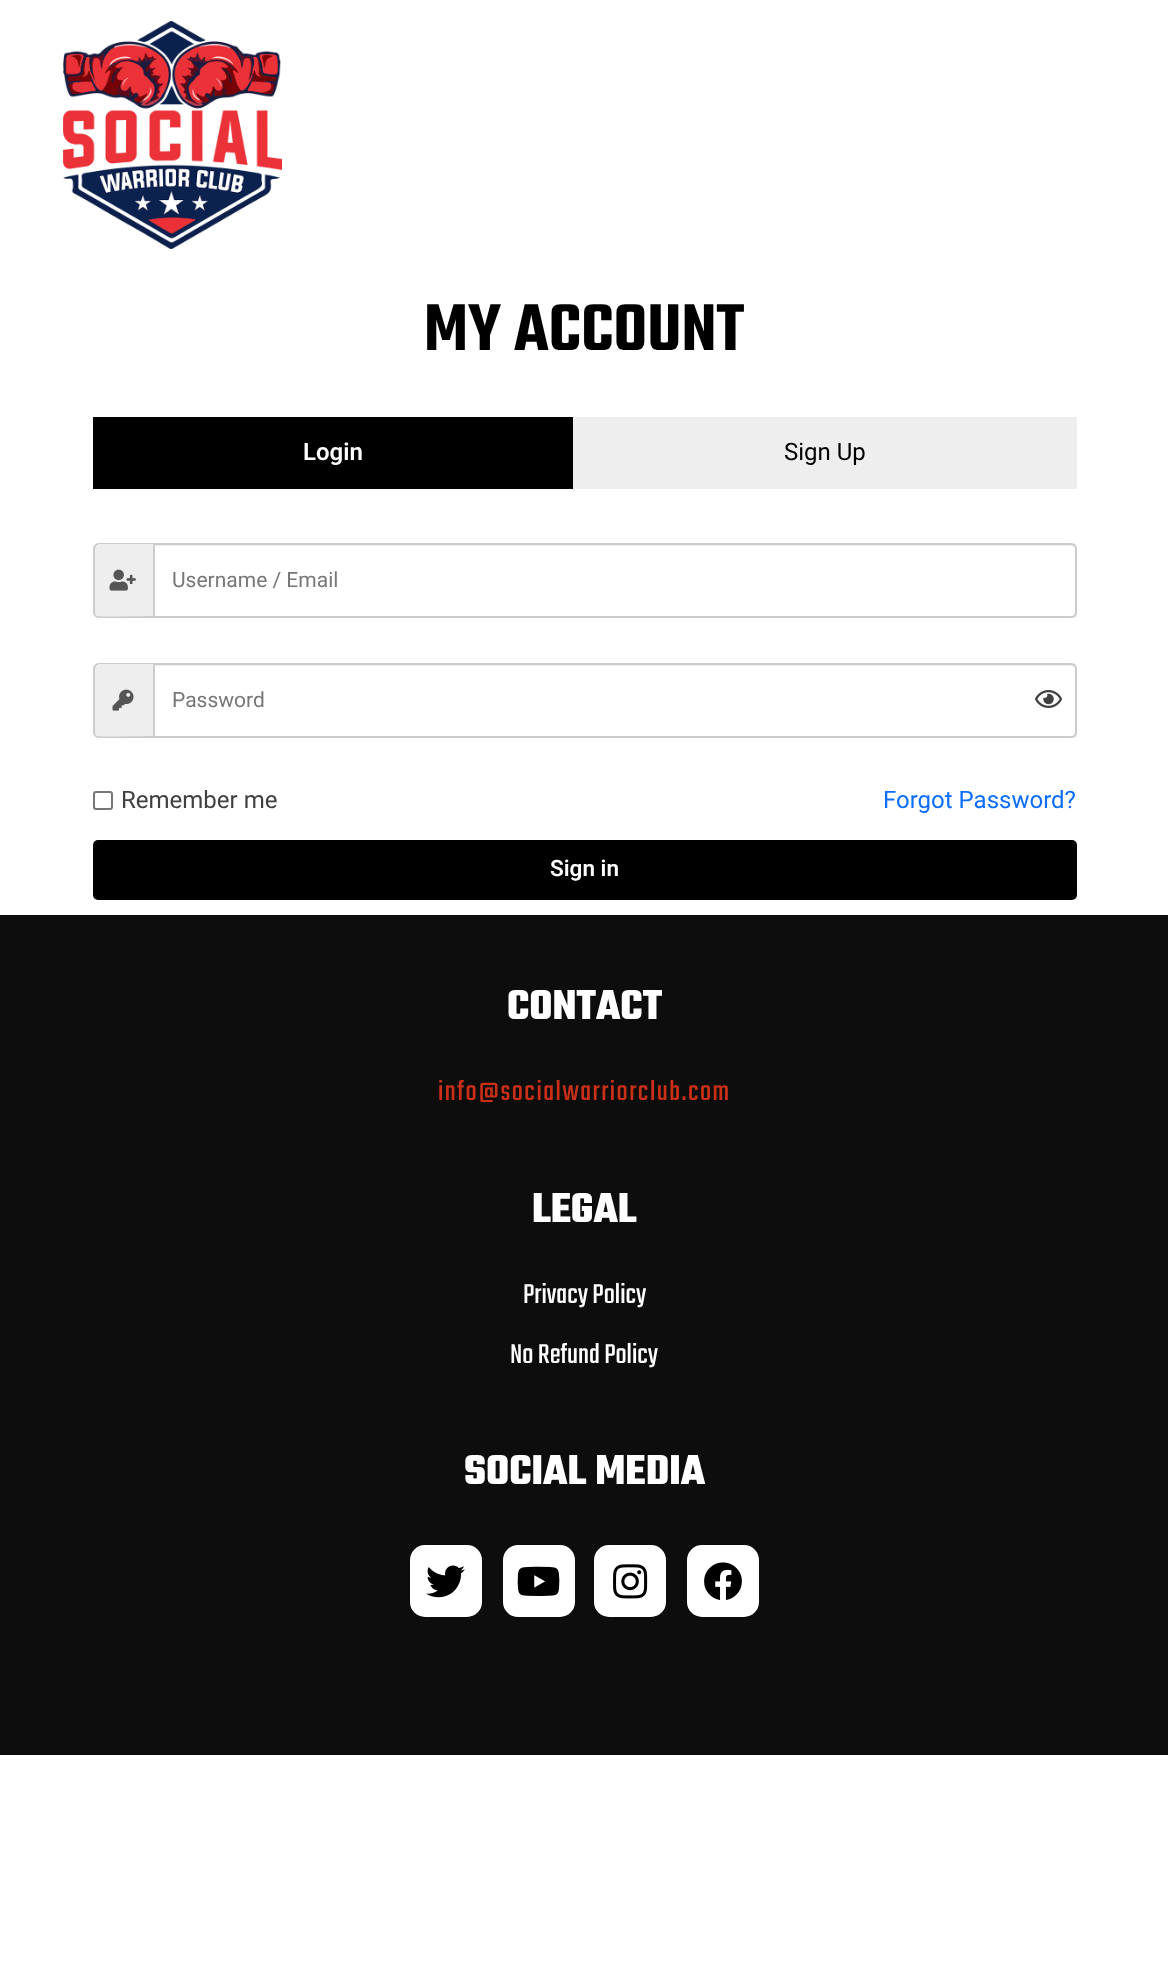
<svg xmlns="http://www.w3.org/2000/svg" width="1168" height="1970">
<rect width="100%" height="100%" fill="#fff"/>
<image x="63" y="21" width="219" height="228" href="media/1.png"/>
<text x="424" y="350" style="font-family:Teko;font-size:72px;font-weight:600;fill:#000">MY ACCOUNT</text>
<rect x="93" y="417" width="480" height="72" fill="#000"/>
<text x="303" y="460" style="font-family:Roboto;font-size:24px;font-weight:600;fill:#fff">Login</text>
<rect x="573" y="417" width="504" height="72" fill="#eee"/>
<text x="784" y="460" style="font-family:Roboto;font-size:24px;fill:#000">Sign Up</text>
<path d="M99 543h54v75h-54c-3.5 0-6-2.5-6-6v-63c0-3.5 2.5-6 6-6z" fill="#eee"/>
<path d="M99 543h54v75h-54c-3 0-6-3-6-6v-63c0-3 3-6 6-6zm0 1h54v72c-7 0-54 1-57 0l-1-3v-65l1-2z" fill="#ccc" fill-rule="evenodd"/>
<image x="109" y="569" width="27" height="22" href="media/2.png"/>
<path d="M155 545v1h916c2 0 5 2 5 4c0-3-2-5-5-5z" fill="#ececec"/>
<path d="M154 544h917c3 0 5 2 5 5v63c0 3-2 5-5 5h-917z" fill="none" stroke="#ccc" stroke-width="2"/>
<text x="172" y="587" style="font-family:Roboto;font-size:21px;fill:#777">Username / Email</text>
<path d="M99 663h54v75h-54c-3.5 0-6-2.5-6-6v-63c0-3.5 2.5-6 6-6z" fill="#eee"/>
<path d="M99 663h54v75h-54c-3 0-6-3-6-6v-63c0-3 3-6 6-6zm0 1h54v72c-7 0-54 1-57 0l-1-3v-65l1-2z" fill="#ccc" fill-rule="evenodd"/>
<image x="112" y="689" width="22" height="22" href="media/3.png"/>
<path d="M155 665v1h916c2 0 5 2 5 4c0-3-2-5-5-5z" fill="#ececec"/>
<path d="M154 664h917c3 0 5 2 5 5v63c0 3-2 5-5 5h-917z" fill="none" stroke="#ccc" stroke-width="2"/>
<text x="172" y="707" style="font-family:Roboto;font-size:21px;fill:#777">Password</text>
<image x="1035" y="690" width="27" height="18" href="media/4.png"/>
<rect x="94" y="792" width="18" height="17" rx="2" fill="none" stroke="#767676" stroke-width="2"/>
<text x="121" y="808" style="font-family:Roboto;font-size:24px;fill:#404040">Remember me</text>
<text x="883" y="808" style="font-family:Roboto;font-size:24px;fill:#0d6efd">Forgot Password?</text>
<rect x="93" y="840" width="984" height="60" rx="5" fill="#000"/>
<text x="550" y="876" style="font-family:Roboto;font-size:22.5px;font-weight:600;fill:#fff">Sign in</text>
<rect y="915" width="1168" height="840" fill="#0d0d0d"/>
<text x="507" y="1019" style="font-family:Teko;font-size:45px;font-weight:bold;fill:#fff">CONTACT</text>
<text x="438" y="1100" style="font-family:Teko;font-size:30px;letter-spacing:1.5px;fill:#cb2f18">info@socialwarriorclub.com</text>
<text x="532" y="1222" style="font-family:Teko;font-size:45px;font-weight:bold;fill:#fff">LEGAL</text>
<text x="523" y="1303" style="font-family:Teko;font-size:30px;fill:#fff">Privacy Policy</text>
<text x="510" y="1363" style="font-family:Teko;font-size:30px;fill:#fff">No Refund Policy</text>
<text x="464" y="1484" style="font-family:Teko;font-size:45px;font-weight:bold;fill:#fff">SOCIAL MEDIA</text>
<rect x="410" y="1545" width="72" height="72" rx="15" fill="#fff"/>
<image x="426" y="1565" width="39" height="33" href="media/5.png"/>
<rect x="503" y="1545" width="72" height="72" rx="15" fill="#fff"/>
<image x="517" y="1566" width="43" height="30" href="media/6.png"/>
<rect x="594" y="1545" width="72" height="72" rx="15" fill="#fff"/>
<image x="613" y="1564" width="35" height="35" href="media/7.png"/>
<rect x="687" y="1545" width="72" height="72" rx="15" fill="#fff"/>
<image x="704" y="1562" width="38" height="38" href="media/8.png"/>
</svg>
